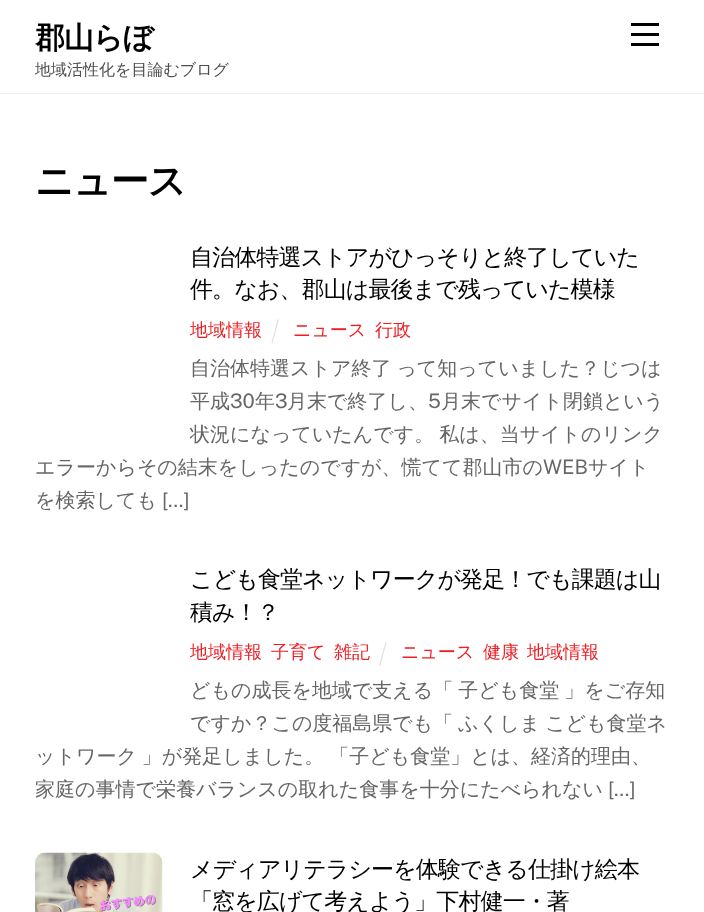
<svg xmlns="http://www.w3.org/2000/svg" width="704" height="912">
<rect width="100%" height="100%" fill="#fff"/>
<rect y="93" width="704" height="1" fill="#f2f2f2"/>
<text x="35" y="48" style="font-family:WenQuanYi Zen Hei;font-size:30px;font-weight:bold;letter-spacing:-1px;fill:#000">郡山らぼ</text>
<text x="35" y="75" style="font-family:WenQuanYi Zen Hei;font-size:16px;font-weight:500;fill:#4d4d4d">地域活性化を目論むブログ</text>
<rect x="631" y="43" width="28" height="3" fill="#000"/>
<rect x="631" y="23" width="28" height="3" fill="#000"/>
<rect x="631" y="33" width="28" height="3" fill="#000"/>
<text x="35" y="194" style="font-family:WenQuanYi Zen Hei;font-size:38px;font-weight:bold;letter-spacing:-1px;fill:#000">ニュース</text>
<text x="190" y="265" style="font-family:WenQuanYi Zen Hei;font-size:23px;font-weight:500;letter-spacing:-0.9px;fill:#000">自治体特選ストアがひっそりと終了していた</text>
<text x="190" y="297" style="font-family:WenQuanYi Zen Hei;font-size:23px;font-weight:500;letter-spacing:-0.9px;fill:#000">件。なお、郡山は最後まで残っていた模様</text>
<text x="190" y="336" style="font-family:WenQuanYi Zen Hei;font-size:18px;font-weight:500;fill:#ed1e24">地域情報</text>
<path d="M277.5 319.5h1.5l-6.5 23.5h-1z" fill="#e0e0e0"/>
<text x="293" y="336" style="font-family:WenQuanYi Zen Hei;font-size:18px;font-weight:500;fill:#ed1e24">ニュース</text>
<text x="375" y="336" style="font-family:WenQuanYi Zen Hei;font-size:18px;font-weight:500;fill:#ed1e24">行政</text>
<text x="190" y="375" word-spacing="-1" style="font-family:WenQuanYi Zen Hei;font-size:20px;font-weight:500;fill:#666">自治体特選ストア終了 って知っていました？じつは</text>
<text x="190" y="408" style="font-family:WenQuanYi Zen Hei;font-size:20px;font-weight:500;fill:#666">平成</text>
<text x="230" y="408" style="font-family:Public Sans;font-size:20px;fill:#666">30</text>
<text x="255" y="408" style="font-family:WenQuanYi Zen Hei;font-size:20px;font-weight:500;fill:#666">年</text>
<text x="275" y="408" style="font-family:Public Sans;font-size:20px;fill:#666">3</text>
<text x="287" y="408" style="font-family:WenQuanYi Zen Hei;font-size:20px;font-weight:500;fill:#666">月末で終了し、</text>
<text x="428" y="408" style="font-family:Public Sans;font-size:20px;fill:#666">5</text>
<text x="441" y="408" style="font-family:WenQuanYi Zen Hei;font-size:20px;font-weight:500;fill:#666">月末でサイト閉鎖という</text>
<text x="190" y="441" word-spacing="-1" style="font-family:WenQuanYi Zen Hei;font-size:20px;font-weight:500;fill:#666">状況になっていたんです。 私は、当サイトのリンク</text>
<text x="35" y="474" style="font-family:WenQuanYi Zen Hei;font-size:20px;font-weight:500;fill:#666">エラーからその結末をしったのですが、慌てて郡山市の</text>
<text x="543" y="474" style="font-family:Public Sans;font-size:20px;fill:#666">WEB</text>
<text x="588" y="474" style="font-family:WenQuanYi Zen Hei;font-size:20px;font-weight:500;fill:#666">サイト</text>
<text x="35" y="507" style="font-family:WenQuanYi Zen Hei;font-size:20px;font-weight:500;fill:#666">を検索しても</text>
<text x="162" y="507" style="font-family:Public Sans;font-size:20px;fill:#666">[…]</text>
<text x="190" y="587" style="font-family:WenQuanYi Zen Hei;font-size:23px;font-weight:500;letter-spacing:-0.9px;fill:#000">こども食堂ネットワークが発足！でも課題は山</text>
<text x="190" y="620" style="font-family:WenQuanYi Zen Hei;font-size:23px;font-weight:500;letter-spacing:-0.9px;fill:#000">積み！？</text>
<text x="190" y="658" style="font-family:WenQuanYi Zen Hei;font-size:18px;font-weight:500;fill:#ed1e24">地域情報</text>
<text x="271" y="658" style="font-family:WenQuanYi Zen Hei;font-size:18px;font-weight:500;fill:#ed1e24">子育て</text>
<text x="334" y="658" style="font-family:WenQuanYi Zen Hei;font-size:18px;font-weight:500;fill:#ed1e24">雑記</text>
<path d="M385.5 642h1l-6 23.5h-1.5z" fill="#e0e0e0"/>
<text x="401" y="658" style="font-family:WenQuanYi Zen Hei;font-size:18px;font-weight:500;fill:#ed1e24">ニュース</text>
<text x="483" y="658" style="font-family:WenQuanYi Zen Hei;font-size:18px;font-weight:500;fill:#ed1e24">健康</text>
<text x="527" y="658" style="font-family:WenQuanYi Zen Hei;font-size:18px;font-weight:500;fill:#ed1e24">地域情報</text>
<text x="190" y="697" word-spacing="-1" style="font-family:WenQuanYi Zen Hei;font-size:20px;font-weight:500;fill:#666">どもの成長を地域で支える「 子ども食堂 」をご存知</text>
<text x="190" y="730" word-spacing="-1" style="font-family:WenQuanYi Zen Hei;font-size:20px;font-weight:500;fill:#666">ですか？この度福島県でも「 ふくしま こども食堂ネ</text>
<text x="35" y="763" word-spacing="-1" style="font-family:WenQuanYi Zen Hei;font-size:20px;font-weight:500;fill:#666">ットワーク 」が発足しました。 「子ども食堂」とは、経済的理由、</text>
<text x="35" y="796" style="font-family:WenQuanYi Zen Hei;font-size:20px;font-weight:500;fill:#666">家庭の事情で栄養バランスの取れた食事を十分にたべられない</text>
<text x="608" y="796" style="font-family:Public Sans;font-size:20px;fill:#666">[…]</text>
<image x="35" y="852" width="128" height="60" href="media/1.png"/>
<text x="190" y="877" style="font-family:WenQuanYi Zen Hei;font-size:23px;font-weight:500;letter-spacing:-0.9px;fill:#000">メディアリテラシーを体験できる仕掛け絵本</text>
<text x="190" y="909" style="font-family:WenQuanYi Zen Hei;font-size:23px;font-weight:500;letter-spacing:-0.9px;fill:#000">「窓を広げて考えよう」下村健一・著</text>
</svg>
